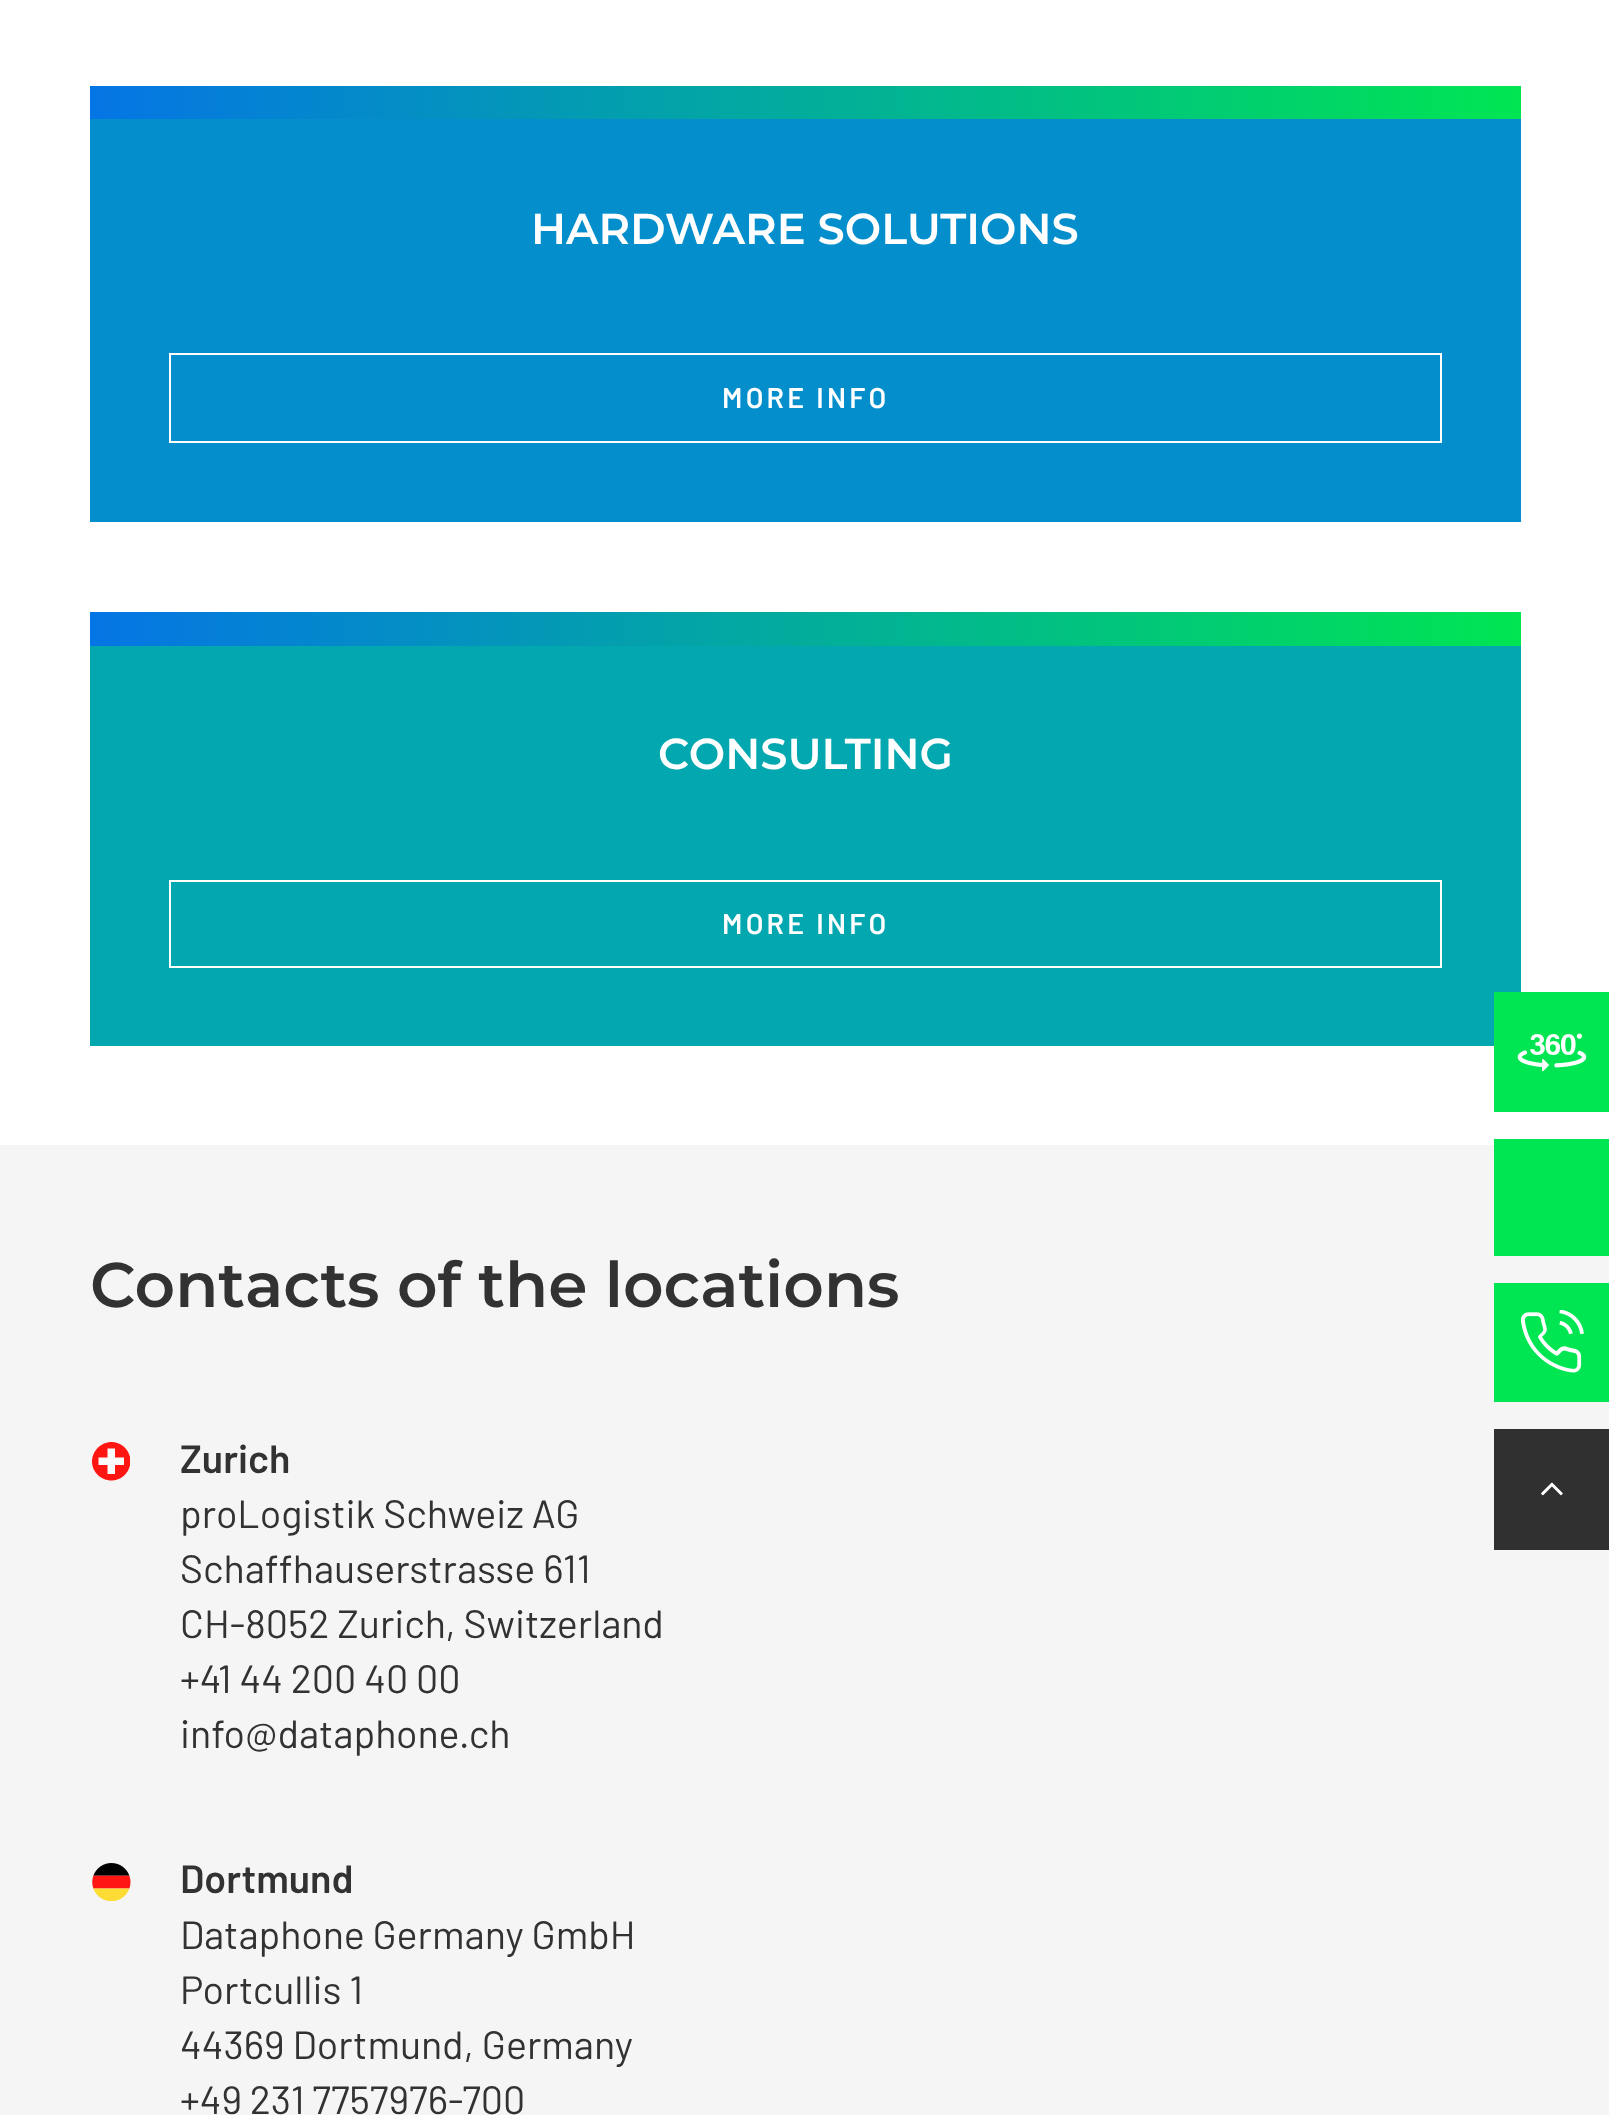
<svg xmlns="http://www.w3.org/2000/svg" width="1609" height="2115">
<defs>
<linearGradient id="g1" gradientUnits="userSpaceOnUse" x1="90" y1="102" x2="1521" y2="102"><stop offset="0" stop-color="#0575e5"/><stop offset="1" stop-color="#00e552"/></linearGradient>
<linearGradient id="g2" gradientUnits="userSpaceOnUse" x1="90" y1="629" x2="1521" y2="629"><stop offset="0" stop-color="#0575e5"/><stop offset="1" stop-color="#00e552"/></linearGradient>
</defs>
<rect width="100%" height="100%" fill="#fff"/>
<rect x="90" y="86" width="1431" height="33" fill="url(#g1)"/>
<rect x="90" y="119" width="1431" height="403" fill="#048ecc"/>
<text x="531" y="244" style="font-family:Montserrat;font-size:43.25px;font-weight:100;fill:#fff">HARDWARE SOLUTIONS</text>
<rect x="170" y="354" width="1271" height="88" fill="none" stroke="#fff" stroke-width="2"/>
<text x="722" y="408" style="font-family:Barlow;font-size:28.5px;font-weight:600;letter-spacing:3.25px;fill:#fff">MORE INFO</text>
<rect x="90" y="612" width="1431" height="34" fill="url(#g2)"/>
<rect x="90" y="646" width="1431" height="400" fill="#03a7b0"/>
<text x="658" y="769" style="font-family:Montserrat;font-size:43.25px;font-weight:100;fill:#fff">CONSULTING</text>
<rect x="170" y="881" width="1271" height="86" fill="none" stroke="#fff" stroke-width="2"/>
<text x="722" y="934" style="font-family:Barlow;font-size:28.5px;font-weight:600;letter-spacing:3.25px;fill:#fff">MORE INFO</text>
<rect y="1145" width="1609" height="970" fill="#f5f5f5"/>
<text x="90" y="1307" style="font-family:Montserrat;font-size:63px;font-weight:100;fill:#323232">Contacts of the locations</text>
<path d="M111.5 1442c9 0 16.5 6.5 18.5 15v8.5c-2 8.5-9.5 15-18.5 15c-10.5 0-19.5-8.5-19.5-19c0-10.5 9-19.5 19.5-19.5z" fill="#ff1612"/>
<path d="M107.5 1448.5h7.5v9h9v7.5h-9v9h-7.5v-9h-9v-7.5h9z" fill="#fafafb"/>
<text x="180" y="1473" style="font-family:Barlow;font-size:39.4px;font-weight:600;fill:#323232">Zurich</text>
<text x="180" y="1528" style="font-family:Barlow;font-size:39.4px;fill:#323232">proLogistik Schweiz AG</text>
<text x="180" y="1583" style="font-family:Barlow;font-size:39.4px;fill:#323232">Schaffhauserstrasse 611</text>
<text x="180" y="1638" style="font-family:Barlow;font-size:39.4px;fill:#323232">CH-8052 Zurich, Switzerland</text>
<text x="180" y="1693" style="font-family:Barlow;font-size:39.4px;fill:#323232">+41 44 200 40 00</text>
<text x="180" y="1748" style="font-family:Barlow;font-size:39.4px;fill:#323232">info@dataphone.ch</text>
<image x="92" y="1863" width="39" height="38" href="media/1.png"/>
<text x="180" y="1893" style="font-family:Barlow;font-size:39.4px;font-weight:600;fill:#323232">Dortmund</text>
<text x="180" y="1949" style="font-family:Barlow;font-size:39.4px;fill:#323232">Dataphone Germany GmbH</text>
<text x="180" y="2004" style="font-family:Barlow;font-size:39.4px;fill:#323232">Portcullis 1</text>
<text x="180" y="2059" style="font-family:Barlow;font-size:39.4px;fill:#323232">44369 Dortmund, Germany</text>
<text x="180" y="2114" style="font-family:Barlow;font-size:39.4px;fill:#323232">+49 231 7757976-700</text>
<rect x="1494" y="992" width="115" height="120" fill="#00e552"/>
<image x="1517" y="1033" width="70" height="39" href="media/2.png"/>
<rect x="1494" y="1139" width="115" height="117" fill="#00e552"/>
<rect x="1494" y="1283" width="115" height="119" fill="#00e552"/>
<image x="1521" y="1310" width="63" height="63" href="media/3.png"/>
<rect x="1494" y="1429" width="115" height="121" fill="#303030"/>
<image x="1541" y="1482" width="22" height="14" href="media/4.png"/>
</svg>
